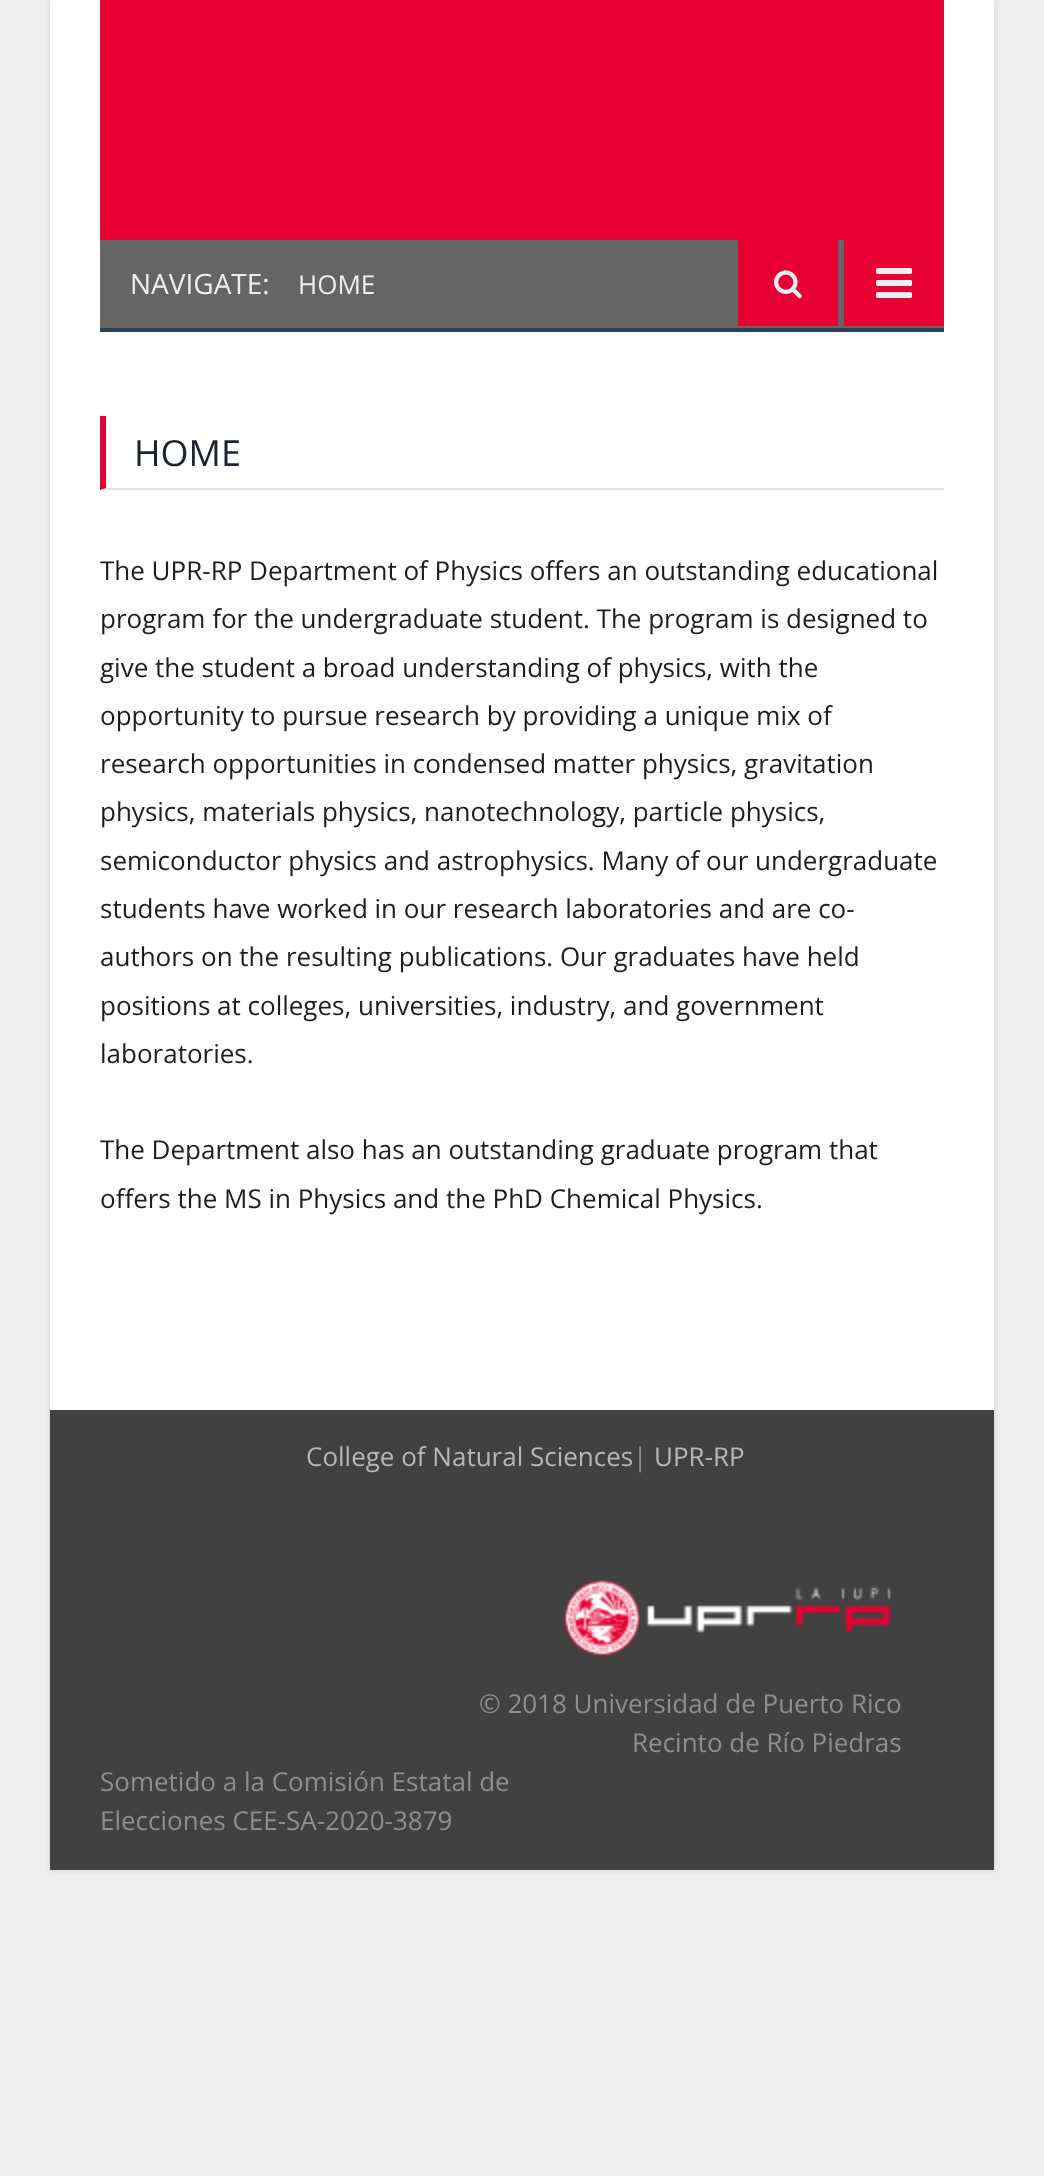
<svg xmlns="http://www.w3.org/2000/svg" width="1044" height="2176">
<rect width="100%" height="100%" fill="#eee"/>
<rect x="50" width="944" height="1870" fill="#0000001f" filter="blur(3px)"/>
<rect x="50" width="944" height="1410" fill="#fff"/>
<rect x="100" width="844" height="240" fill="#e70033"/>
<rect x="100" y="240" width="844" height="88" fill="#656565"/>
<rect x="100" y="328" width="844" height="4" fill="#2f4154"/>
<text x="130" y="294" style="font-family:Open Sans;font-size:28px;fill:#efefef">NAVIGATE:</text>
<text x="298" y="294" style="font-family:Open Sans;font-size:26px;fill:#efefef">HOME</text>
<rect x="738" y="240" width="100" height="86" fill="#e70033"/>
<image x="774" y="270" width="28" height="29" href="media/1.png"/>
<rect x="844" y="240" width="100" height="86" fill="#e70033"/>
<image x="876" y="268" width="36" height="30" href="media/2.png"/>
<path d="M944 490h-844l6-2h838z" fill="#e2e2e2"/>
<path d="M100 490v-74h6v72z" fill="#e70033"/>
<text x="134" y="466" style="font-family:Open Sans;font-size:36px;fill:#19232d">HOME</text>
<text x="100" y="580" style="font-family:Open Sans;font-size:26px;fill:#1d1d1d">The UPR-RP Department of Physics offers an outstanding educational</text>
<text x="100" y="628" style="font-family:Open Sans;font-size:26px;fill:#1d1d1d">program for the undergraduate student. The program is designed to</text>
<text x="100" y="677" style="font-family:Open Sans;font-size:26px;fill:#1d1d1d">give the student a broad understanding of physics, with the</text>
<text x="100" y="725" style="font-family:Open Sans;font-size:26px;fill:#1d1d1d">opportunity to pursue research by providing a unique mix of</text>
<text x="100" y="773" style="font-family:Open Sans;font-size:26px;fill:#1d1d1d">research opportunities in condensed matter physics, gravitation</text>
<text x="100" y="821" style="font-family:Open Sans;font-size:26px;fill:#1d1d1d">physics, materials physics, nanotechnology, particle physics,</text>
<text x="100" y="870" style="font-family:Open Sans;font-size:26px;fill:#1d1d1d">semiconductor physics and astrophysics. Many of our undergraduate</text>
<text x="100" y="918" style="font-family:Open Sans;font-size:26px;fill:#1d1d1d">students have worked in our research laboratories and are co-</text>
<text x="100" y="966" style="font-family:Open Sans;font-size:26px;fill:#1d1d1d">authors on the resulting publications. Our graduates have held</text>
<text x="100" y="1015" style="font-family:Open Sans;font-size:26px;fill:#1d1d1d">positions at colleges, universities, industry, and government</text>
<text x="100" y="1063" style="font-family:Open Sans;font-size:26px;fill:#1d1d1d">laboratories.</text>
<text x="100" y="1159" style="font-family:Open Sans;font-size:26px;fill:#1d1d1d">The Department also has an outstanding graduate program that</text>
<text x="100" y="1208" style="font-family:Open Sans;font-size:26px;fill:#1d1d1d">offers the MS in Physics and the PhD Chemical Physics.</text>
<rect x="50" y="1410" width="944" height="460" fill="#414141"/>
<text x="306" y="1466" style="font-family:Open Sans;font-size:26px;fill:#b6b7b9">College of Natural Sciences</text>
<text x="633" y="1466" style="font-family:Open Sans;font-size:26px;fill:#8d8e92">|</text>
<text x="654" y="1466" style="font-family:Open Sans;font-size:26px;fill:#b6b7b9">UPR-RP</text>
<image x="563" y="1579" width="328" height="78" href="media/3.png"/>
<text x="479" y="1713" style="font-family:Open Sans;font-size:26px;fill:#8d8e92">© 2018 Universidad de Puerto Rico</text>
<text x="632" y="1752" style="font-family:Open Sans;font-size:26px;fill:#8d8e92">Recinto de Río Piedras</text>
<text x="100" y="1791" style="font-family:Open Sans;font-size:26px;fill:#8d8e92">Sometido a la Comisión Estatal de</text>
<text x="100" y="1830" style="font-family:Open Sans;font-size:26px;fill:#8d8e92">Elecciones CEE-SA-2020-3879</text>
</svg>
